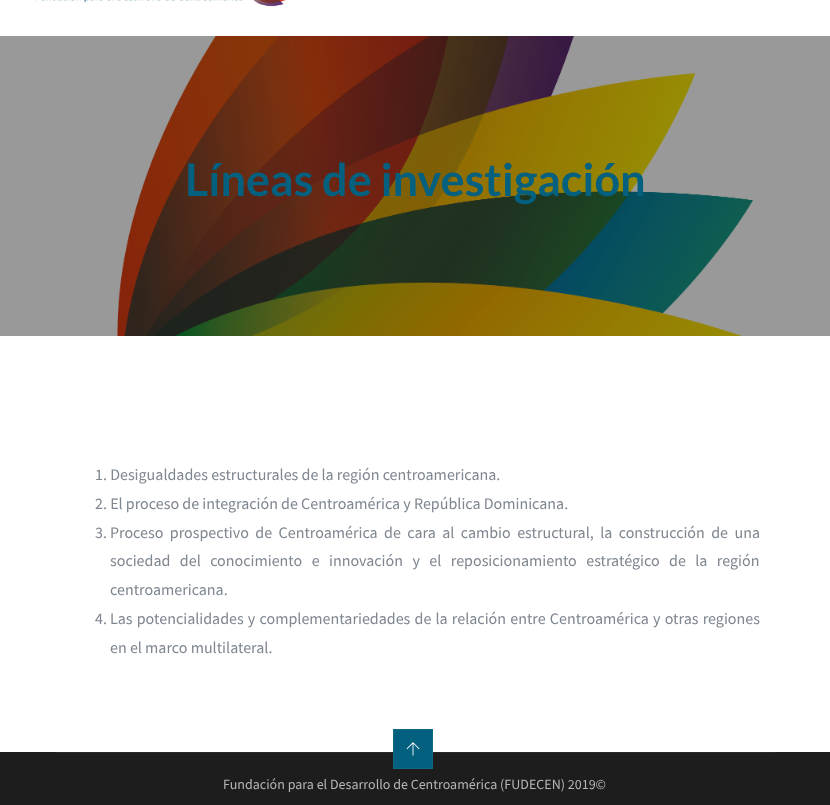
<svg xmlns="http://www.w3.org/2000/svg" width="830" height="805">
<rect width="100%" height="100%" fill="#fff"/>
<rect y="36" width="830" height="300" fill="#999"/>
<image x="36" y="0" width="250" height="7" href="media/1.png"/>
<image x="117" y="36" width="637" height="300" href="media/2.png"/>
<text x="185" y="196" style="font-family:Lato;font-size:45px;font-weight:bold;fill:#03607f">Líneas de investigación</text>
<text x="95" y="480" style="font-family:Source Sans Pro;font-size:16px;fill:#7e8690">1. Desigualdades estructurales de la región centroamericana.</text>
<text x="95" y="509" style="font-family:Source Sans Pro;font-size:16px;fill:#7e8690">2. El proceso de integración de Centroamérica y República Dominicana.</text>
<text x="95" y="538" style="font-family:Source Sans Pro;font-size:16px;fill:#7e8690">3.</text>
<text x="110" y="538" word-spacing="3.25" style="font-family:Source Sans Pro;font-size:16px;fill:#7e8690">Proceso prospectivo de Centroamérica de cara al cambio estructural, la construcción de una</text>
<text x="110" y="566" word-spacing="6.25" style="font-family:Source Sans Pro;font-size:16px;fill:#7e8690">sociedad del conocimiento e innovación y el reposicionamiento estratégico de la región</text>
<text x="110" y="595" style="font-family:Source Sans Pro;font-size:16px;fill:#7e8690">centroamericana.</text>
<text x="95" y="624" style="font-family:Source Sans Pro;font-size:16px;fill:#7e8690">4.</text>
<text x="110" y="624" word-spacing="1" style="font-family:Source Sans Pro;font-size:16px;fill:#7e8690">Las potencialidades y complementariedades de la relación entre Centroamérica y otras regiones</text>
<text x="110" y="653" style="font-family:Source Sans Pro;font-size:16px;fill:#7e8690">en el marco multilateral.</text>
<rect y="752" width="830" height="53" fill="#1d1d1d"/>
<rect x="55" y="752" width="720" height="1" fill="#282828"/>
<rect x="393.5" y="729.5" width="39" height="39" fill="#03607f" stroke="#106885"/>
<image x="406" y="742" width="14" height="14" href="media/3.png"/>
<text x="223" y="789" style="font-family:Source Sans Pro;font-size:14px;fill:#b6b6b6">Fundación para el Desarrollo de Centroamérica (FUDECEN) 2019©</text>
</svg>
